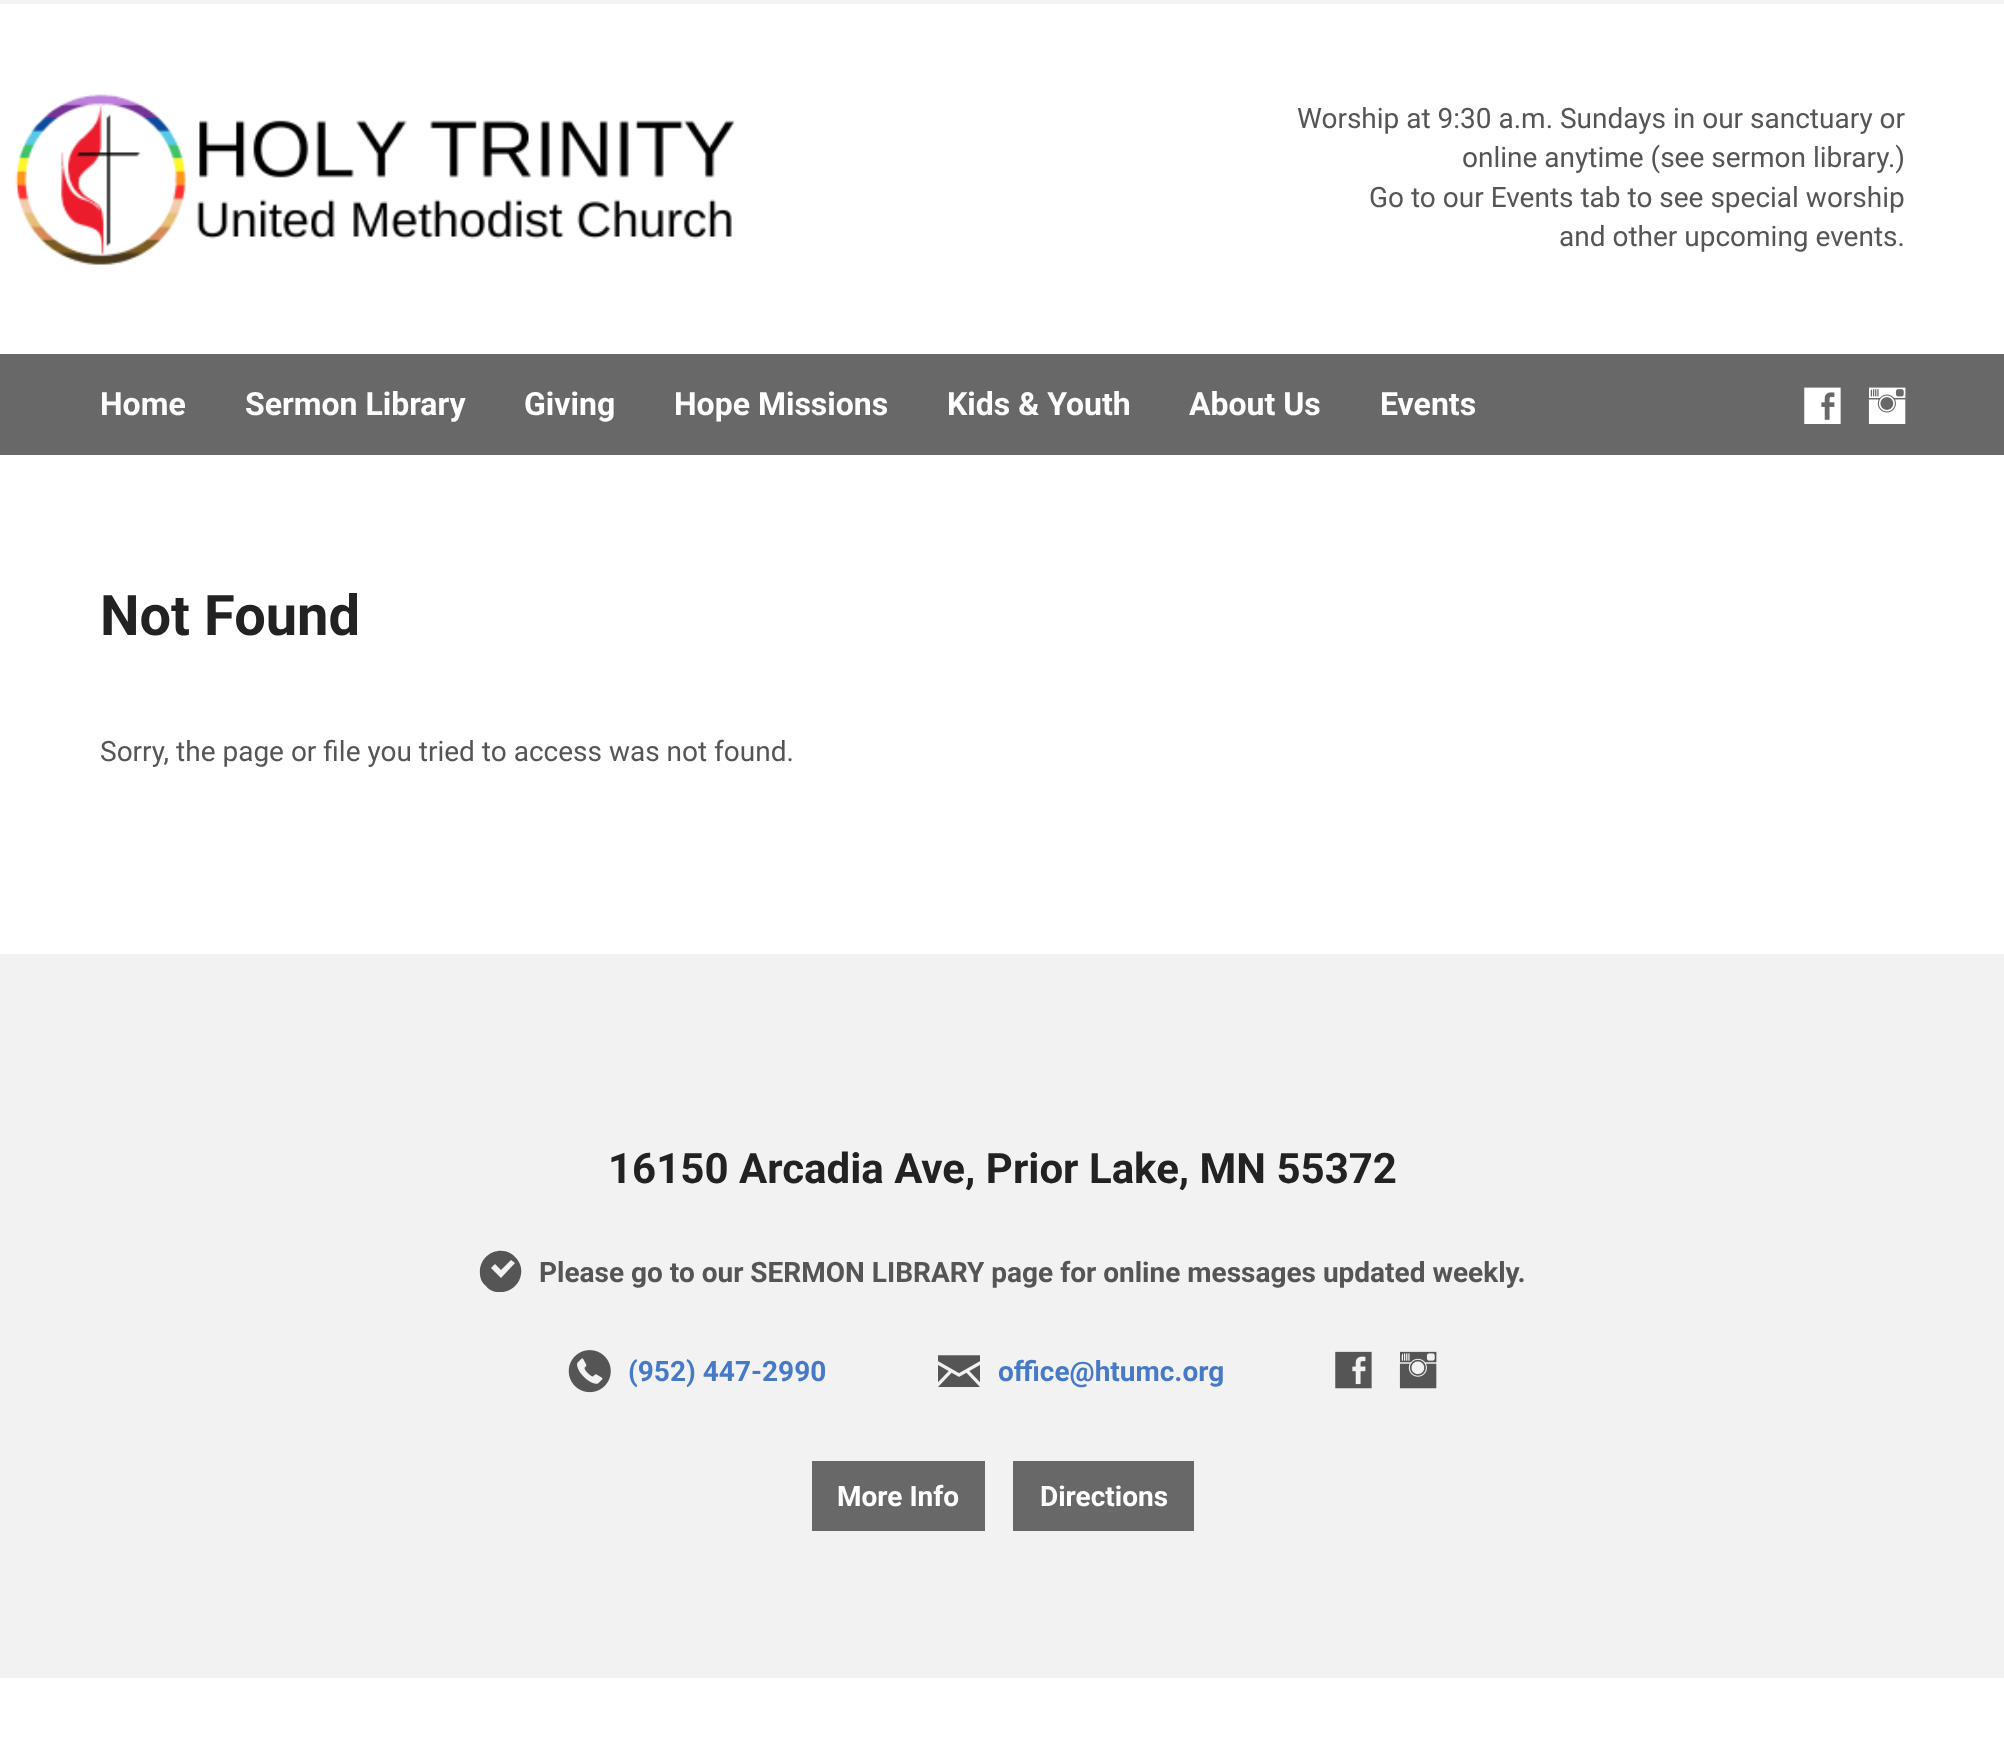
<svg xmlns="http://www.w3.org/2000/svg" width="2004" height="1739">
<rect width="100%" height="100%" fill="#fff"/>
<rect width="2004" height="4" fill="#f2f2f2"/>
<image x="15" y="94" width="720" height="171" href="media/1.png"/>
<text x="1297" y="128" style="font-family:Roboto;font-size:28px;fill:#555">Worship at 9:30 a.m. Sundays in our sanctuary or</text>
<text x="1462" y="167" style="font-family:Roboto;font-size:28px;fill:#555">online anytime (see sermon library.)</text>
<text x="1369" y="207" style="font-family:Roboto;font-size:28px;fill:#555">Go to our Events tab to see special worship</text>
<text x="1559" y="246" style="font-family:Roboto;font-size:28px;fill:#555">and other upcoming events.</text>
<rect y="354" width="2004" height="101" fill="#686868"/>
<text x="100" y="415" style="font-family:Roboto;font-size:32px;font-weight:bold;fill:#fff">Home</text>
<text x="245" y="415" style="font-family:Roboto;font-size:32px;font-weight:bold;fill:#fff">Sermon Library</text>
<text x="524" y="415" style="font-family:Roboto;font-size:32px;font-weight:bold;fill:#fff">Giving</text>
<text x="674" y="415" style="font-family:Roboto;font-size:32px;font-weight:bold;fill:#fff">Hope Missions</text>
<text x="947" y="415" style="font-family:Roboto;font-size:32px;font-weight:bold;fill:#fff">Kids &amp; Youth</text>
<text x="1189" y="415" style="font-family:Roboto;font-size:32px;font-weight:bold;fill:#fff">About Us</text>
<text x="1380" y="415" style="font-family:Roboto;font-size:32px;font-weight:bold;fill:#fff">Events</text>
<image x="1804" y="387" width="37" height="37" href="media/2.png"/>
<image x="1868" y="387" width="38" height="37" href="media/3.png"/>
<text x="100" y="635" style="font-family:Roboto;font-size:56px;font-weight:bold;fill:#222">Not Found</text>
<text x="100" y="761" style="font-family:Roboto;font-size:28px;fill:#555">Sorry, the page or file you tried to access was not found.</text>
<rect y="954" width="2004" height="724" fill="#f2f2f2"/>
<text x="608" y="1183" style="font-family:Roboto;font-size:42px;font-weight:bold;fill:#222">16150 Arcadia Ave, Prior Lake, MN 55372</text>
<path d="M515 1257c-13-14-37-3-35 17c0 4 2 9 6 12c3 4 8 6 12 6c20 2 31-22 17-35zm-4 3l4 3l-14 15l-10-10l4-4l6 6z" fill="#555"/>
<text x="539" y="1282" style="font-family:Roboto;font-size:28px;font-weight:bold;fill:#555">Please go to our SERMON LIBRARY page for online messages updated weekly.</text>
<image x="568" y="1350" width="43" height="43" href="media/4.png"/>
<text x="628" y="1381" style="font-family:Roboto;font-size:28px;font-weight:bold;fill:#477ac6">(952) 447-2990</text>
<image x="938" y="1355" width="42" height="32" href="media/5.png"/>
<text x="998" y="1381" style="font-family:Roboto;font-size:28px;font-weight:bold;fill:#477ac6">office@htumc.org</text>
<image x="1335" y="1351" width="37" height="38" href="media/6.png"/>
<image x="1399" y="1351" width="38" height="38" href="media/7.png"/>
<rect x="812" y="1461" width="173" height="70" fill="#686868"/>
<text x="837" y="1506" style="font-family:Roboto;font-size:28px;font-weight:bold;fill:#fff">More Info</text>
<rect x="1013" y="1461" width="181" height="70" fill="#686868"/>
<text x="1040" y="1506" style="font-family:Roboto;font-size:28px;font-weight:bold;fill:#fff">Directions</text>
</svg>
